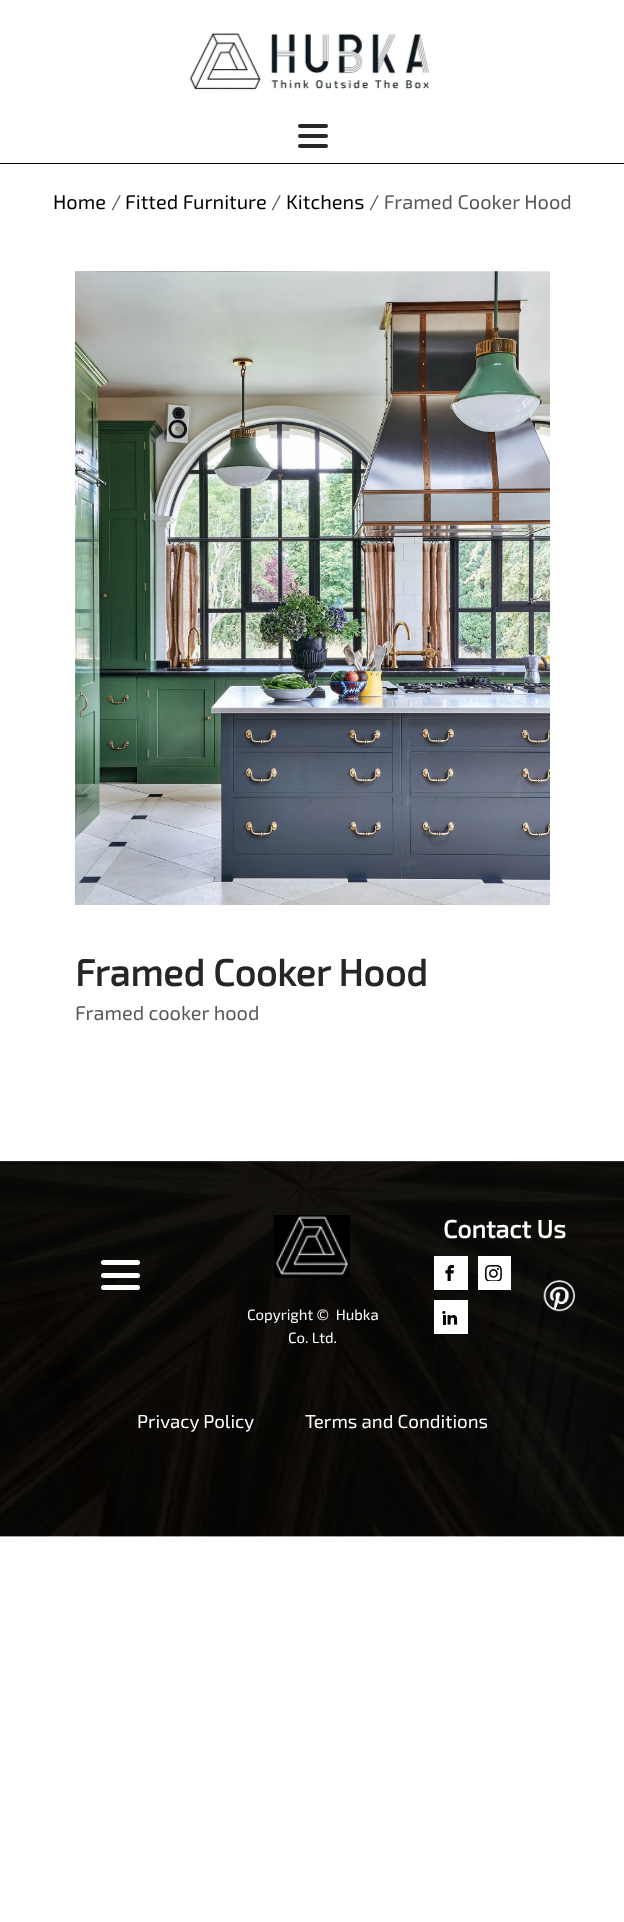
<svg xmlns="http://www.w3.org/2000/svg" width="624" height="1922">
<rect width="100%" height="100%" fill="#fff"/>
<image x="189" y="32" width="240" height="59" href="media/1.png"/>
<rect y="163" width="624" height="1" fill="#000"/>
<rect x="298" y="124" width="30" height="4" rx="2" fill="#282828"/>
<rect x="298" y="134" width="30" height="4" rx="2" fill="#282828"/>
<rect x="298" y="144" width="30" height="4" rx="2" fill="#282828"/>
<text x="53" y="209" style="font-family:'Exo 2';font-size:20px;fill:#000">Home</text>
<text x="111" y="209" style="font-family:'Exo 2';font-size:20px;fill:#595959">/</text>
<text x="125" y="209" style="font-family:'Exo 2';font-size:20px;fill:#000">Fitted Furniture</text>
<text x="271" y="209" style="font-family:'Exo 2';font-size:20px;fill:#595959">/</text>
<text x="286" y="209" style="font-family:'Exo 2';font-size:20px;fill:#000">Kitchens</text>
<text x="369" y="209" style="font-family:'Exo 2';font-size:20px;fill:#595959">/ Framed Cooker Hood</text>
<image x="75" y="271" width="475" height="634" href="media/2.png"/>
<text x="75" y="986" style="font-family:'Exo 2';font-size:37.5px;font-weight:bold;fill:#262626">Framed Cooker Hood</text>
<text x="75" y="1020" style="font-family:'Exo 2';font-size:20px;fill:#595959">Framed cooker hood</text>
<image x="0" y="1161" width="624" height="376" href="media/3.png"/>
<text x="443" y="1238" style="font-family:'Exo 2';font-size:25px;font-weight:bold;fill:#fff">Contact Us</text>
<rect x="434" y="1256" width="34" height="34" fill="#fff"/>
<image x="445" y="1265" width="9" height="16" href="media/4.png"/>
<rect x="478" y="1256" width="33" height="34" fill="#fff"/>
<image x="485" y="1265" width="17" height="16" href="media/5.png"/>
<rect x="434" y="1300" width="34" height="34" fill="#fff"/>
<image x="442" y="1310" width="16" height="15" href="media/6.png"/>
<image x="543" y="1280" width="32" height="32" href="media/7.png"/>
<rect x="101" y="1260" width="39" height="5" rx="2.5" fill="#fff"/>
<rect x="101" y="1273" width="39" height="5" rx="2.5" fill="#fff"/>
<rect x="101" y="1285" width="39" height="5" rx="2.5" fill="#fff"/>
<image x="273" y="1215" width="77" height="63" href="media/8.png"/>
<text x="247" y="1320" style="font-family:'Exo 2';font-size:15px;fill:#fff" xml:space="preserve">Copyright ©  Hubka</text>
<text x="288" y="1343" style="font-family:'Exo 2';font-size:15px;fill:#fff">Co. Ltd.</text>
<text x="137" y="1428" style="font-family:'Exo 2';font-size:18.75px;fill:#fff">Privacy Policy</text>
<text x="305" y="1428" style="font-family:'Exo 2';font-size:18.75px;fill:#fff">Terms and Conditions</text>
</svg>
